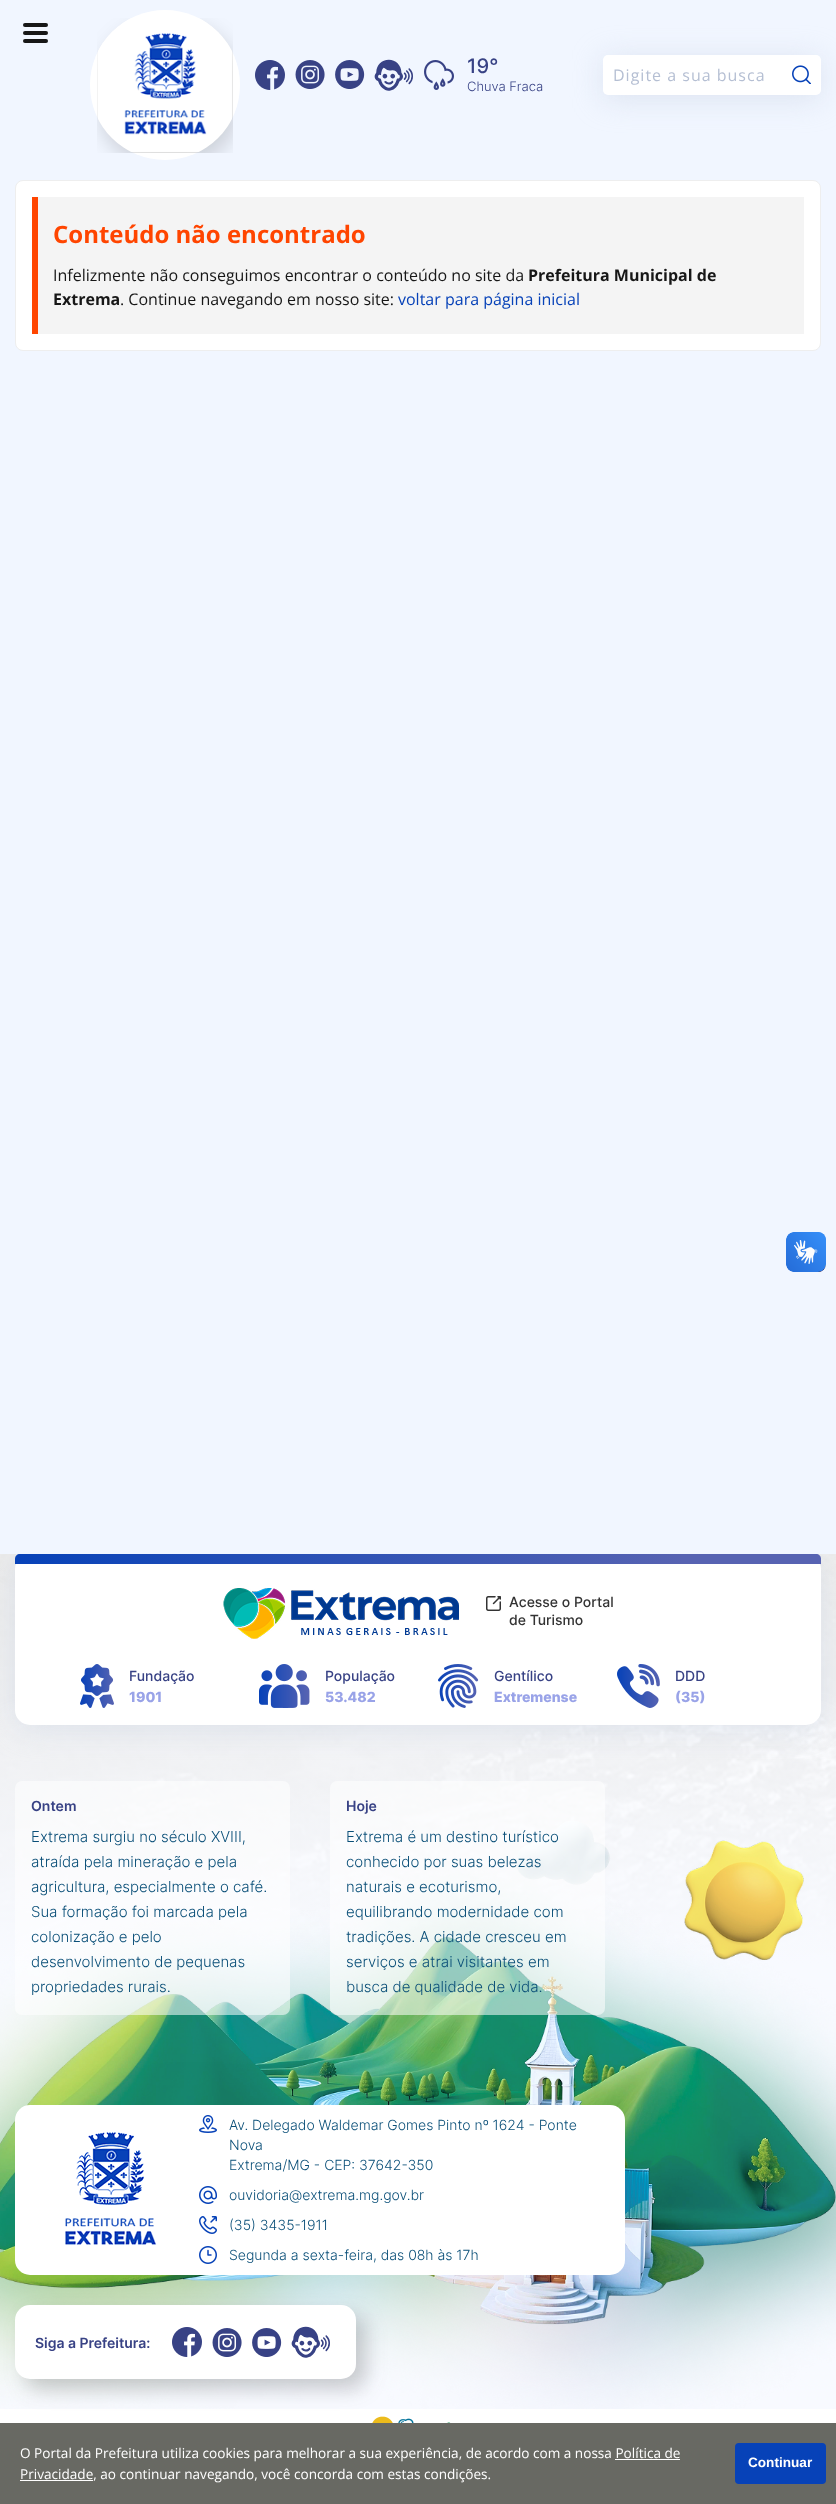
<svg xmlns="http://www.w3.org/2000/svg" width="836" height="2504">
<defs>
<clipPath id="clip1"><rect x="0" y="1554" width="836" height="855"/></clipPath>
<linearGradient id="g1" gradientUnits="userSpaceOnUse" x1="15" y1="1559" x2="821" y2="1559"><stop offset="0" stop-color="#0742b8"/><stop offset="0.83" stop-color="#5763b2"/></linearGradient>
</defs>
<rect width="100%" height="100%" fill="#f1f6ff"/>
<circle cx="165" cy="85" r="75" fill="#fff"/>
<image x="97" y="18" width="136" height="135" href="media/1.png"/>
<rect x="23" y="23" width="25" height="4" rx="2" fill="#171717"/>
<rect x="23" y="31" width="25" height="4" rx="2" fill="#171717"/>
<rect x="23" y="39" width="25" height="4" rx="2" fill="#171717"/>
<image x="255" y="60" width="30" height="30" href="media/2.png"/>
<image x="295" y="60" width="30" height="29" href="media/3.png"/>
<image x="335" y="60" width="30" height="29" href="media/4.png"/>
<image x="374" y="59" width="39" height="32" href="media/5.png"/>
<image x="424" y="60" width="30" height="30" href="media/6.png"/>
<text x="467" y="73" style="font-family:Inter;font-size:20px;font-weight:500;fill:#384285">19°</text>
<text x="467" y="91" style="font-family:Inter;font-size:13px;font-weight:300;fill:#384285">Chuva Fraca</text>
<rect x="603" y="59" width="218" height="40" rx="5" fill="#c8d1e280" filter="blur(15px)"/>
<rect x="603" y="55" width="218" height="40" rx="5" fill="#fff"/>
<text x="613" y="81" style="font-family:Open Sans;font-size:16px;letter-spacing:1px;fill:#b5bfd3">Digite a sua busca</text>
<image x="792" y="65" width="19" height="19" href="media/7.png"/>
<rect x="15.5" y="180.5" width="805" height="170" rx="7.5" fill="#fff" stroke="#eee"/>
<rect x="38" y="197" width="766" height="137" fill="#f4f4f4"/>
<rect x="32" y="197" width="6" height="137" fill="#ff4500"/>
<text x="53" y="243" style="font-family:Open Sans;font-size:24px;font-weight:bold;fill:#ff4500">Conteúdo não encontrado</text>
<text x="53" y="281" style="font-family:Open Sans;font-size:16px;fill:#171717">Infelizmente não conseguimos encontrar o conteúdo no site da</text>
<text x="528" y="281" style="font-family:Open Sans;font-size:16px;font-weight:bold;fill:#171717">Prefeitura Municipal de</text>
<text x="53" y="305" style="font-family:Open Sans;font-size:16px;font-weight:bold;fill:#171717">Extrema</text>
<text x="120" y="305" style="font-family:Open Sans;font-size:16px;fill:#171717">. Continue navegando em nosso site:</text>
<text x="398" y="305" style="font-family:Open Sans;font-size:16px;fill:#0742b8">voltar para página inicial</text>
<image x="786" y="1232" width="40" height="40" href="media/8.png"/>
<image x="786" y="1232" width="40" height="40" href="media/9.png"/>
<image x="0" y="1554" width="836" height="855" href="media/10.png"/>
<g clip-path="url(#clip1)">
<rect x="15" y="1558" width="806" height="171" rx="15" fill="#c8d1e280" filter="blur(15px)"/>
</g>
<rect x="15" y="1554" width="806" height="171" rx="15" fill="#fff"/>
<path d="M20 1554h796c3 0 5 2 5 5v5h-806v-5c0-3 2-5 5-5z" fill="url(#g1)"/>
<image x="223" y="1588" width="236" height="51" href="media/11.png"/>
<image x="486" y="1596" width="15" height="15" href="media/12.png"/>
<text x="509" y="1607" style="font-family:Inter;font-size:14px;font-weight:500;fill:#333">Acesse o Portal</text>
<text x="509" y="1625" style="font-family:Inter;font-size:14px;font-weight:500;fill:#333">de Turismo</text>
<image x="80" y="1664" width="34" height="44" href="media/13.png"/>
<text x="129" y="1681" style="font-family:Inter;font-size:14px;font-weight:500;fill:#384285">Fundação</text>
<text x="129" y="1702" style="font-family:Inter;font-size:14px;font-weight:800;fill:#99a3e8">1901</text>
<image x="259" y="1664" width="51" height="44" href="media/14.png"/>
<text x="325" y="1681" style="font-family:Inter;font-size:14px;font-weight:500;fill:#384285">População</text>
<text x="325" y="1702" style="font-family:Inter;font-size:14px;font-weight:800;fill:#99a3e8">53.482</text>
<image x="438" y="1664" width="41" height="44" href="media/15.png"/>
<text x="494" y="1681" style="font-family:Inter;font-size:14px;font-weight:500;fill:#384285">Gentílico</text>
<text x="494" y="1702" style="font-family:Inter;font-size:14px;font-weight:800;fill:#99a3e8">Extremense</text>
<image x="617" y="1664" width="43" height="44" href="media/16.png"/>
<text x="675" y="1681" style="font-family:Inter;font-size:14px;font-weight:500;fill:#384285">DDD</text>
<text x="675" y="1702" style="font-family:Inter;font-size:14px;font-weight:800;fill:#99a3e8">(35)</text>
<image x="0" y="1821" width="836" height="588" href="media/17.png"/>
<rect x="15" y="1781" width="275" height="234" rx="7" fill="#ffffff8c"/>
<text x="31" y="1811" style="font-family:Inter;font-size:14px;font-weight:600;fill:#384285">Ontem</text>
<text x="31" y="1842" style="font-family:Inter;font-size:15px;font-weight:300;fill:#0a4f78">Extrema surgiu no século XVIII,</text>
<text x="31" y="1867" style="font-family:Inter;font-size:15px;font-weight:300;fill:#0a4f78">atraída pela mineração e pela</text>
<text x="31" y="1892" style="font-family:Inter;font-size:15px;font-weight:300;fill:#0a4f78">agricultura, especialmente o café.</text>
<text x="31" y="1917" style="font-family:Inter;font-size:15px;font-weight:300;fill:#0a4f78">Sua formação foi marcada pela</text>
<text x="31" y="1942" style="font-family:Inter;font-size:15px;font-weight:300;fill:#0a4f78">colonização e pelo</text>
<text x="31" y="1967" style="font-family:Inter;font-size:15px;font-weight:300;fill:#0a4f78">desenvolvimento de pequenas</text>
<text x="31" y="1992" style="font-family:Inter;font-size:15px;font-weight:300;fill:#0a4f78">propriedades rurais.</text>
<rect x="330" y="1781" width="275" height="234" rx="7" fill="#ffffff8c"/>
<text x="346" y="1811" style="font-family:Inter;font-size:14px;font-weight:600;fill:#384285">Hoje</text>
<text x="346" y="1842" style="font-family:Inter;font-size:15px;font-weight:300;fill:#0a4f78">Extrema é um destino turístico</text>
<text x="346" y="1867" style="font-family:Inter;font-size:15px;font-weight:300;fill:#0a4f78">conhecido por suas belezas</text>
<text x="346" y="1892" style="font-family:Inter;font-size:15px;font-weight:300;fill:#0a4f78">naturais e ecoturismo,</text>
<text x="346" y="1917" style="font-family:Inter;font-size:15px;font-weight:300;fill:#0a4f78">equilibrando modernidade com</text>
<text x="346" y="1942" style="font-family:Inter;font-size:15px;font-weight:300;fill:#0a4f78">tradições. A cidade cresceu em</text>
<text x="346" y="1967" style="font-family:Inter;font-size:15px;font-weight:300;fill:#0a4f78">serviços e atrai visitantes em</text>
<text x="346" y="1992" style="font-family:Inter;font-size:15px;font-weight:300;fill:#0a4f78">busca de qualidade de vida.</text>
<rect x="15" y="2105" width="610" height="170" rx="15" fill="#fff"/>
<image x="65" y="2132" width="92" height="113" href="media/18.png"/>
<image x="199" y="2115" width="18" height="18" href="media/19.png"/>
<text x="229" y="2130" style="font-family:Inter;font-size:14px;font-weight:300;fill:#0a4f78">Av. Delegado Waldemar Gomes Pinto nº 1624 - Ponte</text>
<text x="229" y="2150" style="font-family:Inter;font-size:14px;font-weight:300;fill:#0a4f78">Nova</text>
<text x="229" y="2170" style="font-family:Inter;font-size:14px;font-weight:300;fill:#0a4f78">Extrema/MG - CEP: 37642-350</text>
<image x="199" y="2186" width="18" height="18" href="media/20.png"/>
<text x="229" y="2200" style="font-family:Inter;font-size:14px;font-weight:300;fill:#0a4f78">ouvidoria@extrema.mg.gov.br</text>
<image x="199" y="2216" width="18" height="18" href="media/21.png"/>
<text x="229" y="2230" style="font-family:Inter;font-size:14px;font-weight:300;fill:#0a4f78">(35) 3435-1911</text>
<image x="199" y="2246" width="18" height="18" href="media/22.png"/>
<text x="229" y="2260" style="font-family:Inter;font-size:14px;font-weight:300;fill:#0a4f78">Segunda a sexta-feira, das 08h às 17h</text>
<rect y="2409" width="836" height="14" fill="#fff"/>
<image x="372" y="2416" width="79" height="7" href="media/27.png"/>
<rect x="25" y="2315" width="341" height="74" rx="15" fill="#37373740" filter="blur(10px)"/>
<rect x="15" y="2305" width="341" height="74" rx="15" fill="#fff"/>
<text x="35" y="2348" style="font-family:Inter;font-size:14px;font-weight:600;fill:#384285">Siga a Prefeitura:</text>
<image x="172" y="2327" width="30" height="30" href="media/23.png"/>
<image x="212" y="2328" width="30" height="29" href="media/24.png"/>
<image x="252" y="2328" width="30" height="29" href="media/25.png"/>
<image x="291" y="2326" width="39" height="32" href="media/26.png"/>
<rect y="2423" width="836" height="81" fill="#686963"/>
<text x="20" y="2458" style="font-family:Open Sans;font-size:13.6px;fill:#fff">O Portal da Prefeitura utiliza cookies para melhorar a sua experiência, de acordo com a nossa Política de</text>
<rect x="20" y="2480" width="73" height="1" fill="#fff"/>
<text x="20" y="2479" style="font-family:Open Sans;font-size:13.6px;fill:#fff">Privacidade, ao continuar navegando, você concorda com estas condições.</text>
<rect x="615" y="2459" width="65" height="1" fill="#fff"/>
<rect x="735" y="2443" width="91" height="41" rx="4" fill="#0742b8"/>
<text x="748" y="2467" style="font-family:Liberation Sans;font-size:13.6px;font-weight:bold;fill:#fff">Continuar</text>
</svg>
